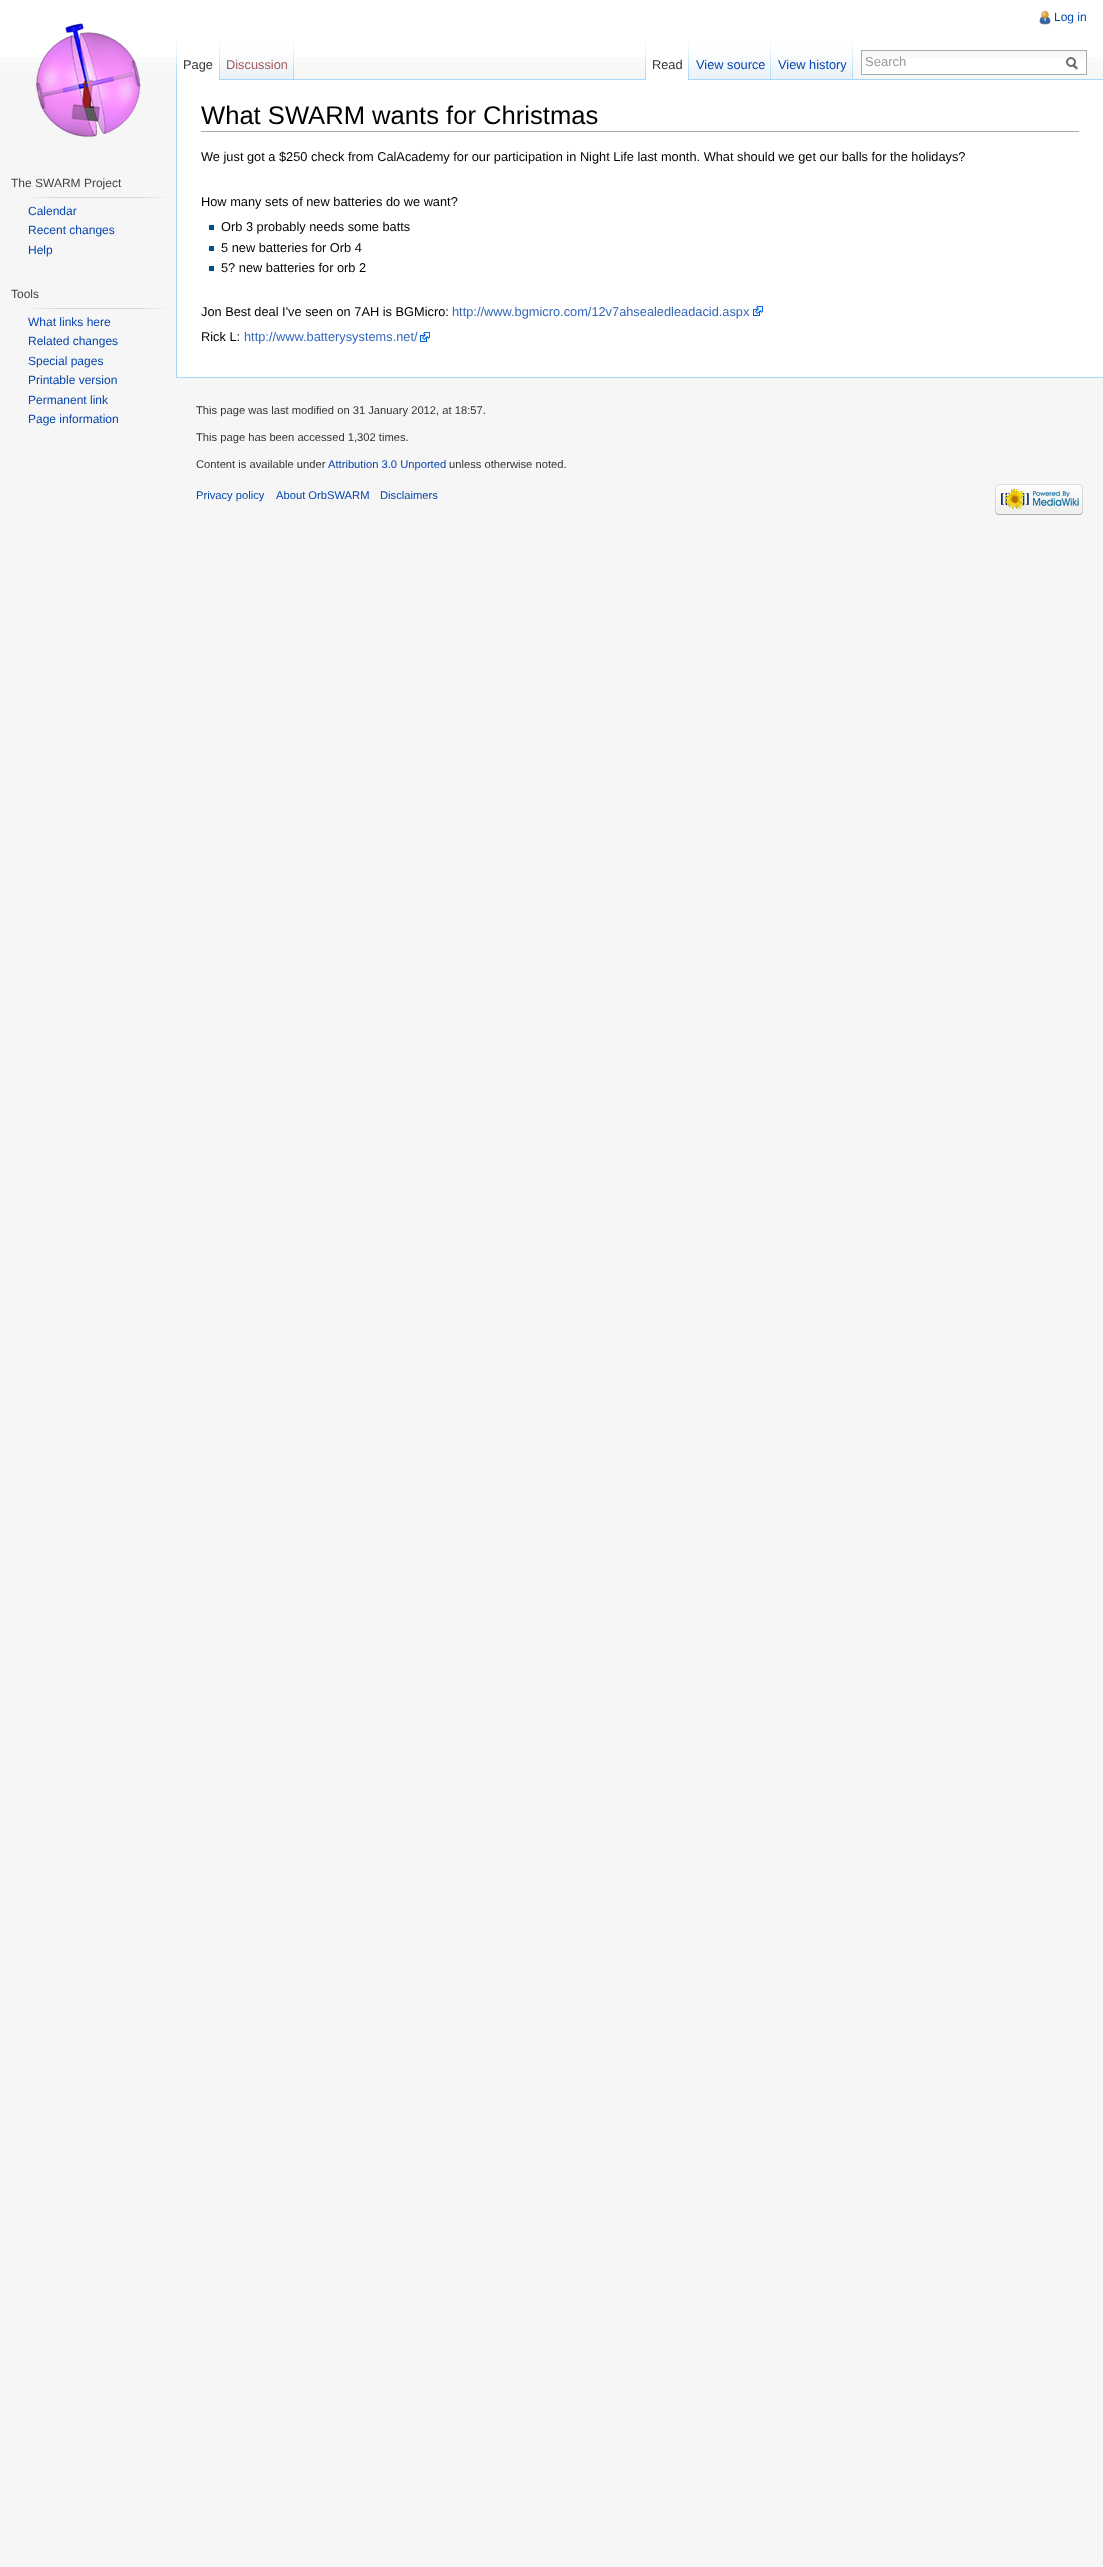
<svg xmlns="http://www.w3.org/2000/svg" width="1103" height="2567">
<rect width="100%" height="100%" fill="#f6f6f6"/>
<rect width="1103" height="57" fill="#fff"/>
<image x="0" y="57" width="1103" height="23" href="media/1.png"/>
<image x="1039" y="11" width="12" height="14" href="media/2.png"/>
<text x="1054" y="21" style="font-family:Liberation Sans;font-size:12px;fill:#0645ad">Log in</text>
<image x="176" y="40" width="1" height="39" href="media/3.png"/>
<rect x="177" y="57" width="42" height="23" fill="#fff"/>
<image x="219" y="40" width="1" height="40" href="media/4.png"/>
<text x="183" y="69" style="font-family:Liberation Sans;font-size:12.8px;fill:#333">Page</text>
<image x="220" y="40" width="74" height="40" href="media/5.png"/>
<image x="293" y="40" width="1" height="39" href="media/6.png"/>
<text x="226" y="69" style="font-family:Liberation Sans;font-size:12.8px;fill:#a55858">Discussion</text>
<image x="645" y="40" width="1" height="39" href="media/3.png"/>
<rect x="294" y="79" width="809" height="1" fill="#a7d7f9"/>
<rect x="646" y="57" width="42" height="23" fill="#fff"/>
<image x="688" y="40" width="1" height="40" href="media/4.png"/>
<text x="652" y="69" style="font-family:Liberation Sans;font-size:12.8px;fill:#333">Read</text>
<image x="689" y="40" width="82" height="40" href="media/7.png"/>
<image x="770" y="40" width="1" height="39" href="media/6.png"/>
<text x="696" y="69" style="font-family:Liberation Sans;font-size:12.8px;fill:#0645ad">View source</text>
<image x="771" y="40" width="82" height="40" href="media/7.png"/>
<image x="852" y="40" width="1" height="39" href="media/6.png"/>
<text x="778" y="69" style="font-family:Liberation Sans;font-size:12.8px;fill:#0645ad">View history</text>
<rect x="862" y="59" width="224" height="15" fill="#fff"/>
<image x="862" y="51" width="224" height="8" href="media/8.png"/>
<rect x="861.5" y="50.5" width="225" height="24" fill="none" stroke="#aaa"/>
<text x="865" y="66" style="font-family:Liberation Sans;font-size:13px;fill:#999">Search</text>
<image x="1066" y="57" width="12" height="13" href="media/9.png"/>
<image x="36" y="23" width="105" height="114" href="media/10.png"/>
<text x="11" y="187" style="font-family:Liberation Sans;font-size:12px;fill:#444">The SWARM Project</text>
<image x="31" y="197" width="135" height="1" href="media/11.png"/>
<text x="28" y="215" style="font-family:Liberation Sans;font-size:12px;fill:#0645ad">Calendar</text>
<text x="28" y="234" style="font-family:Liberation Sans;font-size:12px;fill:#0645ad">Recent changes</text>
<text x="28" y="254" style="font-family:Liberation Sans;font-size:12px;fill:#0645ad">Help</text>
<text x="11" y="298" style="font-family:Liberation Sans;font-size:12px;fill:#444">Tools</text>
<image x="31" y="308" width="135" height="1" href="media/11.png"/>
<text x="28" y="326" style="font-family:Liberation Sans;font-size:12px;fill:#0645ad">What links here</text>
<text x="28" y="345" style="font-family:Liberation Sans;font-size:12px;fill:#0645ad">Related changes</text>
<text x="28" y="365" style="font-family:Liberation Sans;font-size:12px;fill:#0645ad">Special pages</text>
<text x="28" y="384" style="font-family:Liberation Sans;font-size:12px;fill:#0645ad">Printable version</text>
<text x="28" y="404" style="font-family:Liberation Sans;font-size:12px;fill:#0645ad">Permanent link</text>
<text x="28" y="423" style="font-family:Liberation Sans;font-size:12px;fill:#0645ad">Page information</text>
<rect x="177" y="80" width="926" height="297" fill="#fff"/>
<rect x="176" y="377" width="927" height="1" fill="#a7d7f9"/>
<rect x="176" y="79" width="1" height="299" fill="#a7d7f9"/>
<rect x="201" y="131" width="878" height="1" fill="#aaa"/>
<text x="201" y="124" style="font-family:Liberation Sans;font-size:25.6px;fill:#000">What SWARM wants for Christmas</text>
<text x="201" y="161" style="font-family:Liberation Sans;font-size:12.8px;fill:#000">We just got a $250 check from CalAcademy for our participation in Night Life last month. What should we get our balls for the holidays?</text>
<text x="201" y="206" style="font-family:Liberation Sans;font-size:12.8px;fill:#000">How many sets of new batteries do we want?</text>
<rect x="209" y="225" width="5" height="5" fill="#00528c"/>
<text x="221" y="231" style="font-family:Liberation Sans;font-size:12.8px;fill:#000">Orb 3 probably needs some batts</text>
<rect x="209" y="246" width="5" height="5" fill="#00528c"/>
<text x="221" y="252" style="font-family:Liberation Sans;font-size:12.8px;fill:#000">5 new batteries for Orb 4</text>
<rect x="209" y="266" width="5" height="5" fill="#00528c"/>
<text x="221" y="272" style="font-family:Liberation Sans;font-size:12.8px;fill:#000">5? new batteries for orb 2</text>
<text x="201" y="316" style="font-family:Liberation Sans;font-size:12.8px;fill:#000">Jon Best deal I've seen on 7AH is BGMicro:</text>
<text x="452" y="316" style="font-family:Liberation Sans;font-size:12.8px;fill:#36b">http://www.bgmicro.com/12v7ahsealedleadacid.aspx</text>
<image x="753" y="306" width="10" height="10" href="media/12.png"/>
<text x="201" y="341" style="font-family:Liberation Sans;font-size:12.8px;fill:#000">Rick L:</text>
<text x="244" y="341" style="font-family:Liberation Sans;font-size:12.8px;fill:#36b">http://www.batterysystems.net/</text>
<image x="420" y="332" width="10" height="10" href="media/12.png"/>
<text x="196" y="414" style="font-family:Liberation Sans;font-size:11.2px;fill:#333">This page was last modified on 31 January 2012, at 18:57.</text>
<text x="196" y="441" style="font-family:Liberation Sans;font-size:11.2px;fill:#333">This page has been accessed 1,302 times.</text>
<text x="196" y="468" style="font-family:Liberation Sans;font-size:11.2px;fill:#333">Content is available under</text>
<text x="328" y="468" style="font-family:Liberation Sans;font-size:11.2px;fill:#0645ad">Attribution 3.0 Unported</text>
<text x="449" y="468" style="font-family:Liberation Sans;font-size:11.2px;fill:#333">unless otherwise noted.</text>
<text x="196" y="499" style="font-family:Liberation Sans;font-size:11.2px;fill:#0645ad">Privacy policy</text>
<text x="276" y="499" style="font-family:Liberation Sans;font-size:11.2px;fill:#0645ad">About OrbSWARM</text>
<text x="380" y="499" style="font-family:Liberation Sans;font-size:11.2px;fill:#0645ad">Disclaimers</text>
<image x="995" y="484" width="88" height="31" href="media/13.png"/>
</svg>
